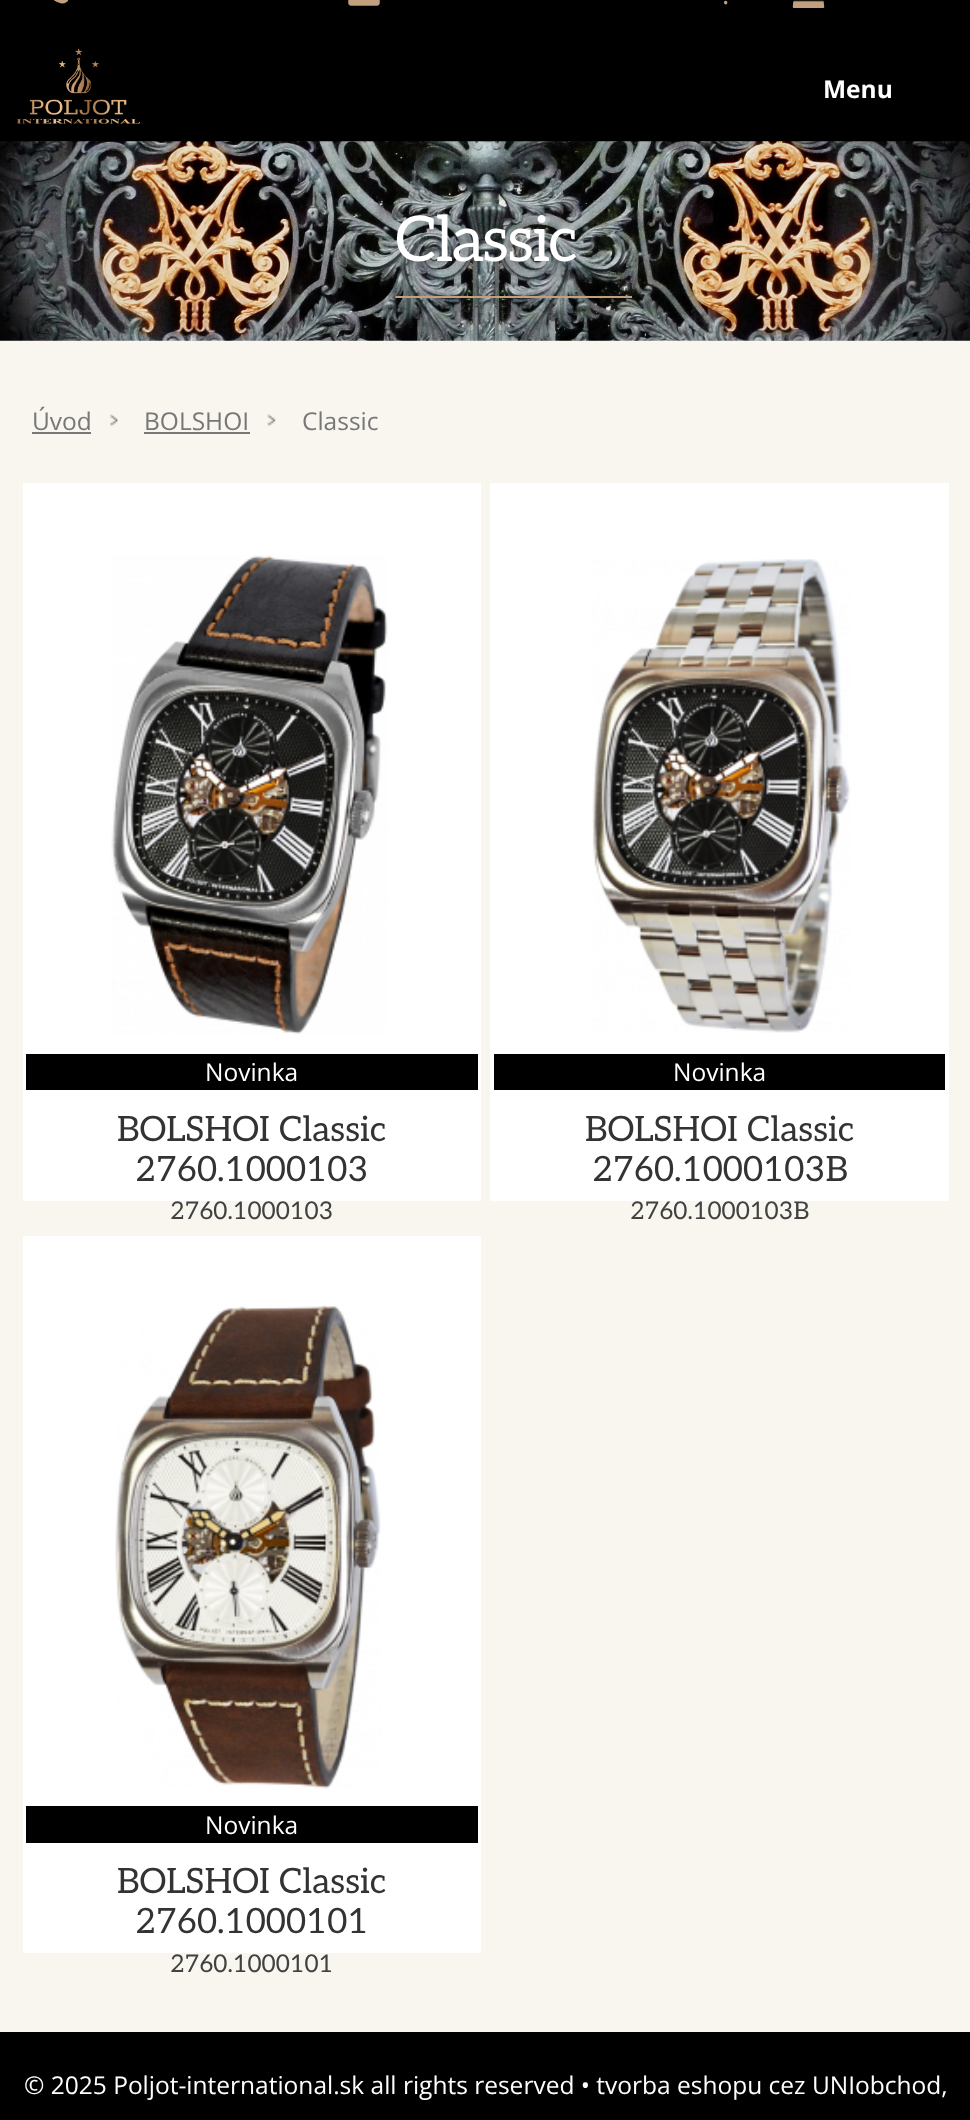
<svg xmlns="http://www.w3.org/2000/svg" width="970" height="2120">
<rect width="100%" height="100%" fill="#000"/>
<image x="53" y="0" width="16" height="4" href="media/1.png"/>
<image x="348" y="0" width="32" height="6" href="media/2.png"/>
<text x="722" y="4" style="font-family:Open Sans;font-size:28px;fill:#c3a07d">.</text>
<image x="792" y="0" width="33" height="8" href="media/3.png"/>
<image x="17" y="48" width="123" height="76" href="media/4.png"/>
<text x="823" y="98" style="font-family:Open Sans;font-size:24.5px;font-weight:bold;fill:#fff">Menu</text>
<rect y="340" width="970" height="1692" fill="#f9f6ef"/>
<image x="0" y="141" width="970" height="200" href="media/5.png"/>
<text x="395" y="261" style="font-family:Aleo;font-size:63px;letter-spacing:-1.75px;fill:#fff">Classic</text>
<rect x="396" y="296" width="236" height="2" fill="#c3a07d"/>
<text x="32" y="430" style="font-family:Open Sans;font-size:24.5px;fill:#777">Úvod</text>
<rect x="32" y="432" width="59" height="2" fill="#777"/>
<image x="110" y="414" width="8" height="13" href="media/6.png"/>
<text x="144" y="430" style="font-family:Open Sans;font-size:24.5px;fill:#777">BOLSHOI</text>
<rect x="144" y="432" width="106" height="2" fill="#777"/>
<image x="267" y="414" width="9" height="13" href="media/7.png"/>
<text x="302" y="430" style="font-family:Open Sans;font-size:24.5px;fill:#777">Classic</text>
<rect x="23" y="483" width="458" height="718" fill="#fff"/>
<image x="111" y="555" width="277" height="480" href="media/8.png"/>
<rect x="26" y="1054" width="452" height="36" fill="#000"/>
<text x="205" y="1081" style="font-family:Open Sans;font-size:24.5px;fill:#fff">Novinka</text>
<text x="117" y="1141" style="font-family:Aleo;font-size:35px;fill:#333">BOLSHOI Classic</text>
<text x="135" y="1181" style="font-family:Aleo;font-size:35px;fill:#333">2760.1000103</text>
<text x="170" y="1219" style="font-family:Aleo;font-size:24.5px;fill:#414141">2760.1000103</text>
<rect x="490" y="483" width="459" height="718" fill="#fff"/>
<image x="592" y="559" width="259" height="474" href="media/9.png"/>
<rect x="494" y="1054" width="451" height="36" fill="#000"/>
<text x="673" y="1081" style="font-family:Open Sans;font-size:24.5px;fill:#fff">Novinka</text>
<text x="585" y="1141" style="font-family:Aleo;font-size:35px;fill:#333">BOLSHOI Classic</text>
<text x="592" y="1181" style="font-family:Aleo;font-size:35px;fill:#333">2760.1000103B</text>
<text x="630" y="1219" style="font-family:Aleo;font-size:24.5px;fill:#414141">2760.1000103B</text>
<rect x="23" y="1236" width="458" height="717" fill="#fff"/>
<image x="115" y="1305" width="266" height="484" href="media/10.png"/>
<rect x="26" y="1806" width="452" height="37" fill="#000"/>
<text x="205" y="1834" style="font-family:Open Sans;font-size:24.5px;fill:#fff">Novinka</text>
<text x="117" y="1893" style="font-family:Aleo;font-size:35px;fill:#333">BOLSHOI Classic</text>
<text x="135" y="1933" style="font-family:Aleo;font-size:35px;fill:#333">2760.1000101</text>
<text x="170" y="1972" style="font-family:Aleo;font-size:24.5px;fill:#414141">2760.1000101</text>
<text x="24" y="2094" style="font-family:Open Sans;font-size:24.5px;fill:#fff">© 2025 Poljot-international.sk all rights reserved • tvorba eshopu cez UNIobchod,</text>
</svg>
